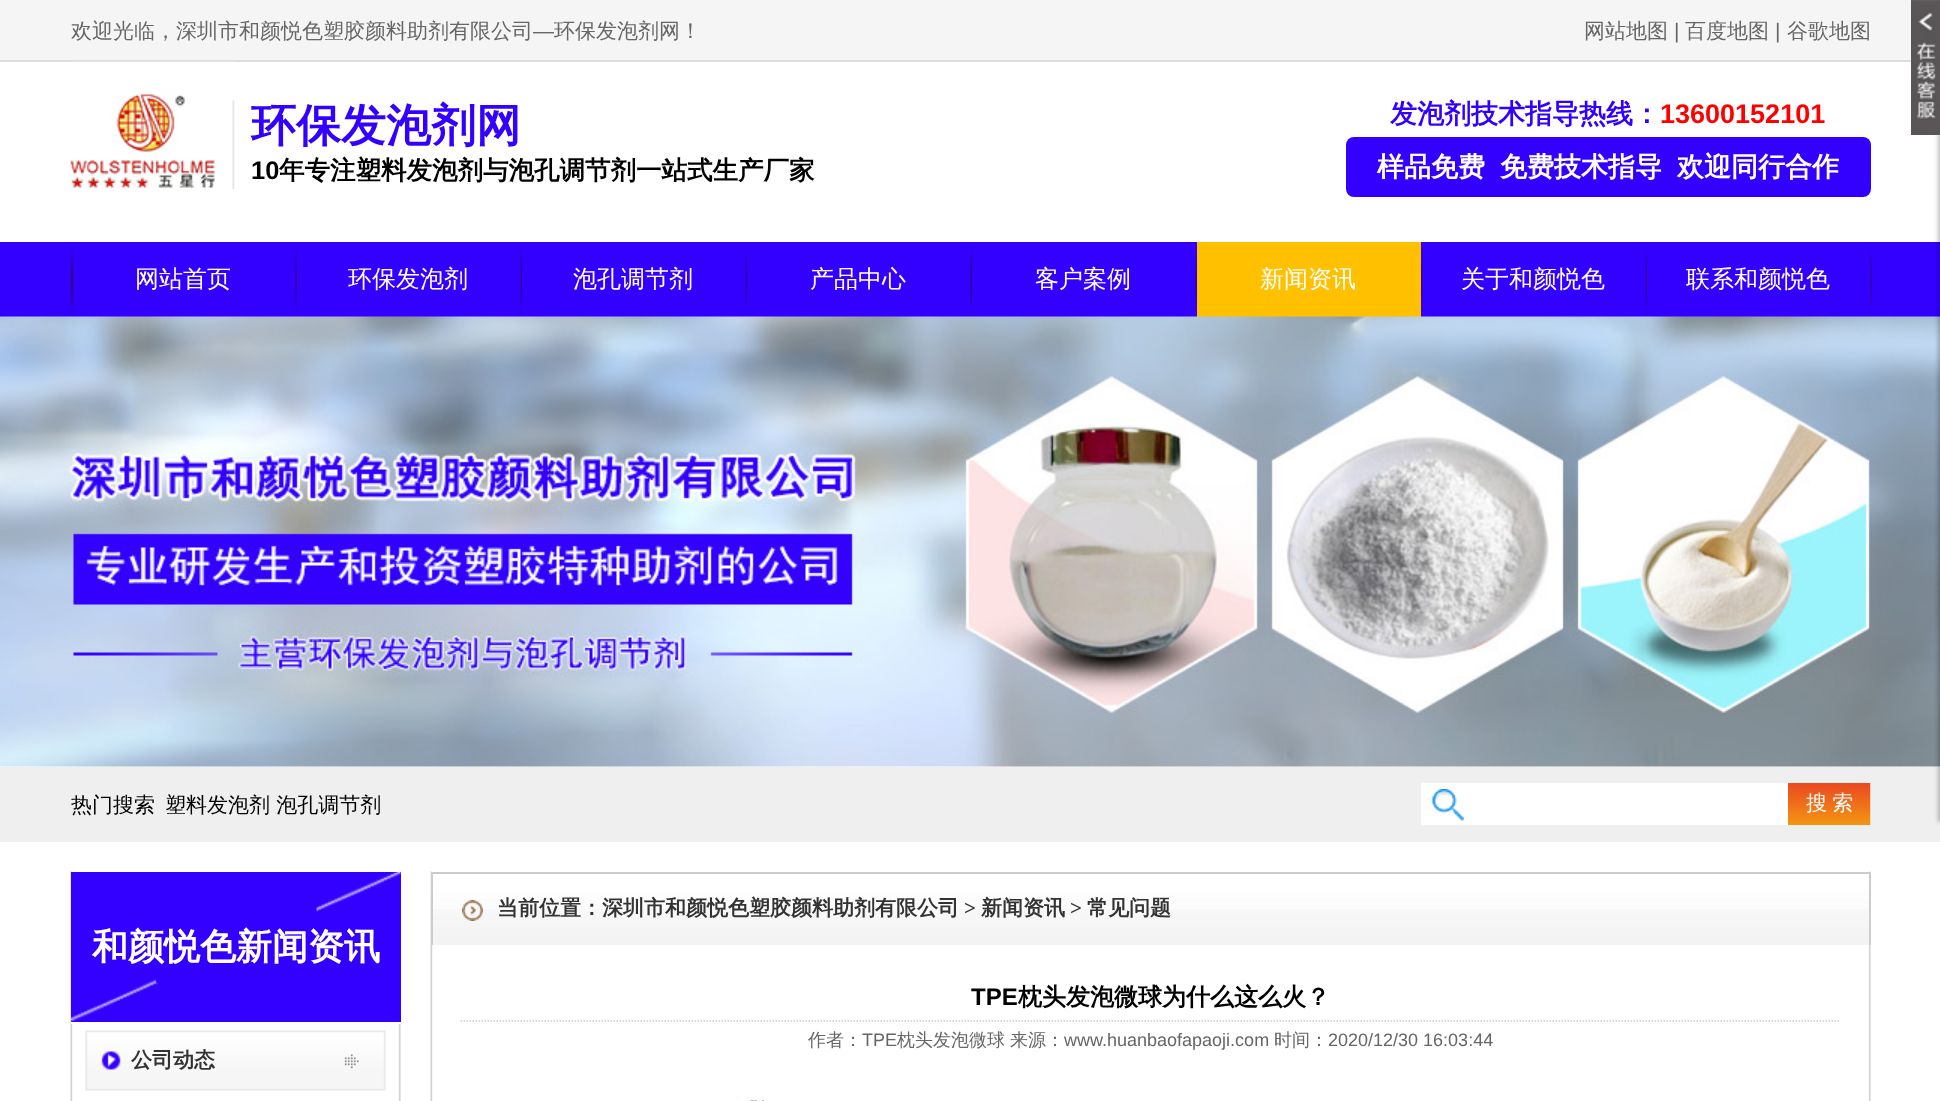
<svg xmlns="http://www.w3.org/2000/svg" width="1940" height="1101">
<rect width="100%" height="100%" fill="#fff"/>
<rect y="242" width="1940" height="75" fill="#30f"/>
<rect x="1197" y="242" width="224" height="75" fill="#ffc000"/>
<image x="0" y="316" width="1940" height="451" href="media/6.png"/>
<rect y="767" width="1940" height="75" fill="#efefef"/>
<rect x="1938" width="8" height="822" fill="#00000040" filter="blur(2px)"/>
<image x="1911" y="0" width="29" height="135" href="media/1.png"/>
<rect width="1911" height="60" fill="#f5f5f5"/>
<rect y="60" width="1911" height="2" fill="#ddd"/>
<text x="71" y="38" style="font-family:WenQuanYi Zen Hei;font-size:21px;font-weight:500;fill:#666">欢迎光临，深圳市和颜悦色塑胶颜料助剂有限公司</text>
<text x="533" y="38" style="font-family:Liberation Sans;font-size:21px;fill:#666">—</text>
<text x="554" y="38" style="font-family:WenQuanYi Zen Hei;font-size:21px;font-weight:500;fill:#666">环保发泡剂网！</text>
<text x="1584" y="38" style="font-family:WenQuanYi Zen Hei;font-size:21px;font-weight:500;fill:#666">网站地图</text>
<text x="1674" y="38" style="font-family:Liberation Sans;font-size:21px;fill:#666">|</text>
<text x="1685" y="38" style="font-family:WenQuanYi Zen Hei;font-size:21px;font-weight:500;fill:#666">百度地图</text>
<text x="1775" y="38" style="font-family:Liberation Sans;font-size:21px;fill:#666">|</text>
<text x="1787" y="38" style="font-family:WenQuanYi Zen Hei;font-size:21px;font-weight:500;fill:#666">谷歌地图</text>
<image x="70" y="61" width="165" height="129" href="media/2.png"/>
<text x="251" y="141" style="font-family:WenQuanYi Zen Hei;font-size:45px;font-weight:bold;fill:#30f">环保发泡剂网</text>
<text x="251" y="179" style="font-family:Liberation Sans;font-size:25.5px;font-weight:bold;fill:#000">10</text>
<text x="279" y="179" style="font-family:WenQuanYi Zen Hei;font-size:25.5px;font-weight:bold;fill:#000">年专注塑料发泡剂与泡孔调节剂一站式生产厂家</text>
<text x="1390" y="123" style="font-family:WenQuanYi Zen Hei;font-size:27px;font-weight:bold;fill:#30f">发泡剂技术指导热线：</text>
<text x="1660" y="123" style="font-family:Liberation Sans;font-size:27px;font-weight:bold;fill:#f00">13600152101</text>
<rect x="1346" y="137" width="525" height="60" rx="8" fill="#30f"/>
<text x="1377" y="176" style="font-family:WenQuanYi Zen Hei;font-size:27px;font-weight:bold;fill:#fff">样品免费</text>
<text x="1500" y="176" style="font-family:WenQuanYi Zen Hei;font-size:27px;font-weight:bold;fill:#fff">免费技术指导</text>
<text x="1677" y="176" style="font-family:WenQuanYi Zen Hei;font-size:27px;font-weight:bold;fill:#fff">欢迎同行合作</text>
<image x="70" y="245" width="4" height="71" href="media/3.png"/>
<image x="295" y="245" width="2" height="71" href="media/4.png"/>
<text x="135" y="287" style="font-family:WenQuanYi Zen Hei;font-size:24px;font-weight:500;fill:#fff">网站首页</text>
<image x="520" y="245" width="2" height="71" href="media/4.png"/>
<text x="348" y="287" style="font-family:WenQuanYi Zen Hei;font-size:24px;font-weight:500;fill:#fff">环保发泡剂</text>
<image x="745" y="245" width="2" height="71" href="media/4.png"/>
<text x="573" y="287" style="font-family:WenQuanYi Zen Hei;font-size:24px;font-weight:500;fill:#fff">泡孔调节剂</text>
<image x="970" y="245" width="2" height="71" href="media/4.png"/>
<text x="810" y="287" style="font-family:WenQuanYi Zen Hei;font-size:24px;font-weight:500;fill:#fff">产品中心</text>
<image x="1195" y="245" width="2" height="71" href="media/4.png"/>
<text x="1035" y="287" style="font-family:WenQuanYi Zen Hei;font-size:24px;font-weight:500;fill:#fff">客户案例</text>
<image x="1421" y="245" width="1" height="71" href="media/5.png"/>
<text x="1260" y="287" style="font-family:WenQuanYi Zen Hei;font-size:24px;font-weight:500;fill:#fff">新闻资讯</text>
<image x="1645" y="245" width="2" height="71" href="media/4.png"/>
<text x="1461" y="287" style="font-family:WenQuanYi Zen Hei;font-size:24px;font-weight:500;fill:#fff">关于和颜悦色</text>
<image x="1870" y="245" width="2" height="71" href="media/4.png"/>
<text x="1686" y="287" style="font-family:WenQuanYi Zen Hei;font-size:24px;font-weight:500;fill:#fff">联系和颜悦色</text>
<text x="71" y="812" style="font-family:WenQuanYi Zen Hei;font-size:21px;font-weight:500;fill:#000">热门搜索</text>
<text x="165" y="812" style="font-family:WenQuanYi Zen Hei;font-size:21px;font-weight:500;fill:#000">塑料发泡剂 泡孔调节剂</text>
<rect x="1421" y="783" width="367" height="42" fill="#fff"/>
<image x="1432" y="789" width="32" height="32" href="media/7.png"/>
<image x="1788" y="783" width="83" height="42" href="media/8.png"/>
<text x="1806" y="810" word-spacing="-1" style="font-family:WenQuanYi Zen Hei;font-size:21px;font-weight:500;fill:#fff">搜 索</text>
<image x="70" y="871" width="1801" height="230" href="media/9.png"/>
<rect x="71" y="872" width="330" height="150" fill="#30f"/>
<image x="71" y="872" width="330" height="150" href="media/10.png"/>
<rect x="71" y="1022" width="330" height="2" fill="#fff"/>
<text x="92" y="959" style="font-family:WenQuanYi Zen Hei;font-size:36px;font-weight:bold;fill:#fff">和颜悦色新闻资讯</text>
<image x="85" y="1030" width="301" height="61" href="media/11.png"/>
<text x="131" y="1067" style="font-family:WenQuanYi Zen Hei;font-size:21px;font-weight:bold;fill:#333">公司动态</text>
<image x="430" y="871" width="1441" height="74" href="media/12.png"/>
<image x="462" y="900" width="21" height="21" href="media/13.png"/>
<rect x="431" y="872" width="1440" height="2" fill="#ccc"/>
<rect x="1869" y="872" width="2" height="73" fill="#ccc"/>
<rect x="431" y="872" width="2" height="73" fill="#ccc"/>
<text x="497" y="915" style="font-family:WenQuanYi Zen Hei;font-size:21px;font-weight:bold;fill:#333">当前位置：深圳市和颜悦色塑胶颜料助剂有限公司</text>
<text x="964" y="915" style="font-family:Liberation Serif;font-size:21px;font-weight:bold;fill:#333">&gt;</text>
<text x="981" y="915" style="font-family:WenQuanYi Zen Hei;font-size:21px;font-weight:bold;fill:#333">新闻资讯</text>
<text x="1070" y="915" style="font-family:Liberation Serif;font-size:21px;font-weight:bold;fill:#333">&gt;</text>
<text x="1087" y="915" style="font-family:WenQuanYi Zen Hei;font-size:21px;font-weight:bold;fill:#333">常见问题</text>
<path d="M460.5 1021h1380" fill="none" stroke="#ccc" stroke-width="1.5" stroke-dasharray="1.5 1.5"/>
<text x="971" y="1005" style="font-family:Liberation Sans;font-size:24px;font-weight:bold;fill:#000">TPE</text>
<text x="1018" y="1005" style="font-family:WenQuanYi Zen Hei;font-size:24px;font-weight:bold;fill:#000">枕头发泡微球为什么这么火？</text>
<text x="808" y="1046" style="font-family:WenQuanYi Zen Hei;font-size:18px;font-weight:500;fill:#666">作者：</text>
<text x="862" y="1046" style="font-family:Liberation Sans;font-size:18px;fill:#666">TPE</text>
<text x="897" y="1046" style="font-family:WenQuanYi Zen Hei;font-size:18px;font-weight:500;fill:#666">枕头发泡微球</text>
<text x="1010" y="1046" style="font-family:WenQuanYi Zen Hei;font-size:18px;font-weight:500;fill:#666">来源：</text>
<text x="1064" y="1046" style="font-family:Liberation Sans;font-size:18px;fill:#666">www.huanbaofapaoji.com</text>
<text x="1274" y="1046" style="font-family:WenQuanYi Zen Hei;font-size:18px;font-weight:500;fill:#666">时间：</text>
<text x="1328" y="1046" style="font-family:Liberation Sans;font-size:18px;fill:#666">2020/12/30 16:03:44</text>
<image x="750" y="1100" width="14" height="1" href="media/14.png"/>
</svg>
